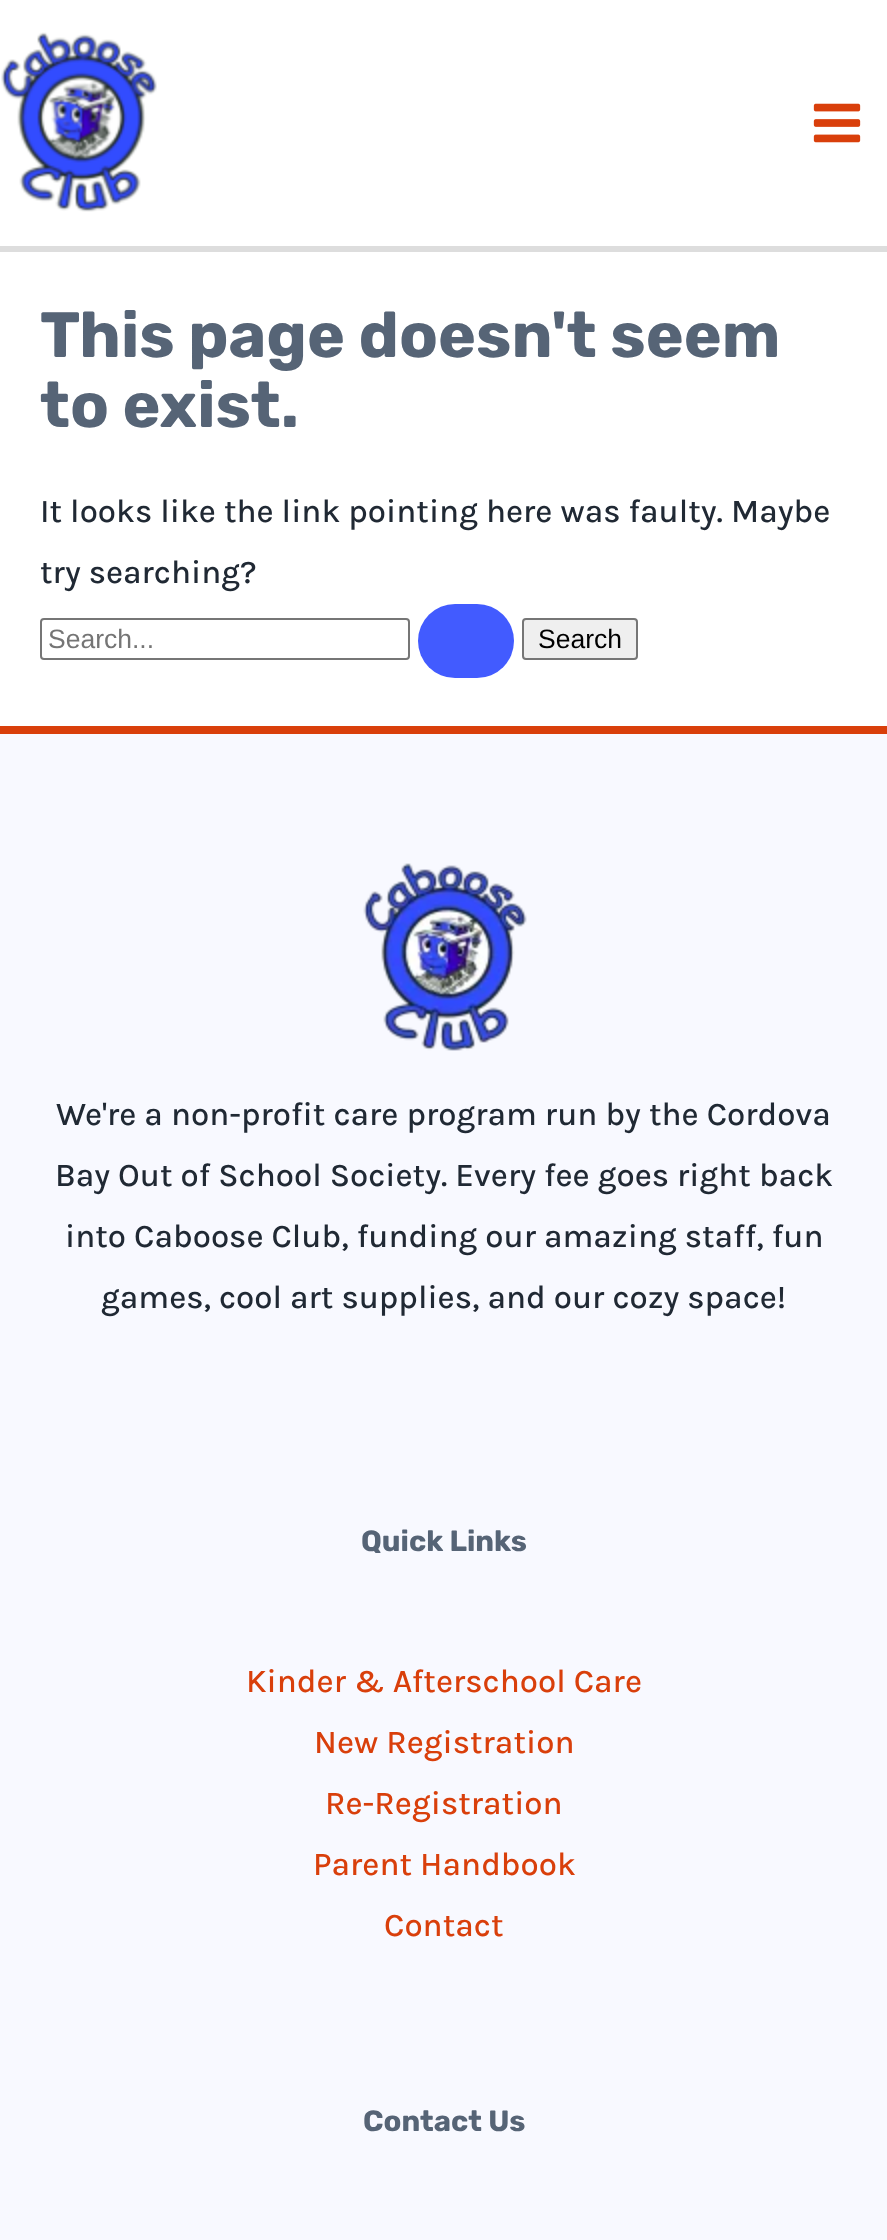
<svg xmlns="http://www.w3.org/2000/svg" width="887" height="2240">
<rect width="100%" height="100%" fill="#fff"/>
<rect y="246" width="887" height="6" fill="#ddd"/>
<image x="1" y="32" width="156" height="180" href="media/1.png"/>
<image x="813" y="103" width="48" height="40" href="media/2.png"/>
<text x="40" y="357" style="font-family:Rubik;font-size:64px;font-weight:bold;fill:#566476">This page doesn't seem</text>
<text x="40" y="427" style="font-family:Rubik;font-size:64px;font-weight:bold;fill:#566476">to exist.</text>
<text x="40" y="522" style="font-family:Karla;font-size:32.8px;font-weight:500;fill:#202934">It looks like the link pointing here was faulty. Maybe</text>
<text x="40" y="583" style="font-family:Karla;font-size:32.8px;font-weight:500;fill:#202934">try searching?</text>
<rect x="41" y="619" width="368" height="40" rx="3" fill="none" stroke="#767676" stroke-width="2"/>
<text x="48" y="648" style="font-family:Liberation Sans;font-size:26.5px;fill:#757575">Search...</text>
<rect x="418" y="604" width="96" height="74" rx="37" fill="#425bff"/>
<rect x="523" y="619" width="114" height="40" rx="3" fill="#efefef" stroke="#767676" stroke-width="2"/>
<text x="538" y="648" style="font-family:Liberation Sans;font-size:26.5px;fill:#000">Search</text>
<rect y="734" width="887" height="1506" fill="#f8f9ff"/>
<rect y="726" width="887" height="8" fill="#d93f0b"/>
<image x="363" y="863" width="164" height="188" href="media/3.png"/>
<text x="56" y="1125" style="font-family:Karla;font-size:32.8px;font-weight:500;fill:#202934">We're a non-profit care program run by the Cordova</text>
<text x="55" y="1186" style="font-family:Karla;font-size:32.8px;font-weight:500;fill:#202934">Bay Out of School Society. Every fee goes right back</text>
<text x="65" y="1247" style="font-family:Karla;font-size:32.8px;font-weight:500;fill:#202934">into Caboose Club, funding our amazing staff, fun</text>
<text x="101" y="1308" style="font-family:Karla;font-size:32.8px;font-weight:500;fill:#202934">games, cool art supplies, and our cozy space!</text>
<text x="361" y="1551" style="font-family:Rubik;font-size:29.25px;font-weight:bold;fill:#566476">Quick Links</text>
<text x="246" y="1692" style="font-family:Karla;font-size:32.8px;font-weight:500;fill:#d93f0b">Kinder &amp; Afterschool Care</text>
<text x="314" y="1753" style="font-family:Karla;font-size:32.8px;font-weight:500;fill:#d93f0b">New Registration</text>
<text x="325" y="1814" style="font-family:Karla;font-size:32.8px;font-weight:500;fill:#d93f0b">Re-Registration</text>
<text x="313" y="1875" style="font-family:Karla;font-size:32.8px;font-weight:500;fill:#d93f0b">Parent Handbook</text>
<text x="384" y="1936" style="font-family:Karla;font-size:32.8px;font-weight:500;fill:#d93f0b">Contact</text>
<text x="363" y="2131" style="font-family:Rubik;font-size:29.25px;font-weight:bold;fill:#566476">Contact Us</text>
</svg>
